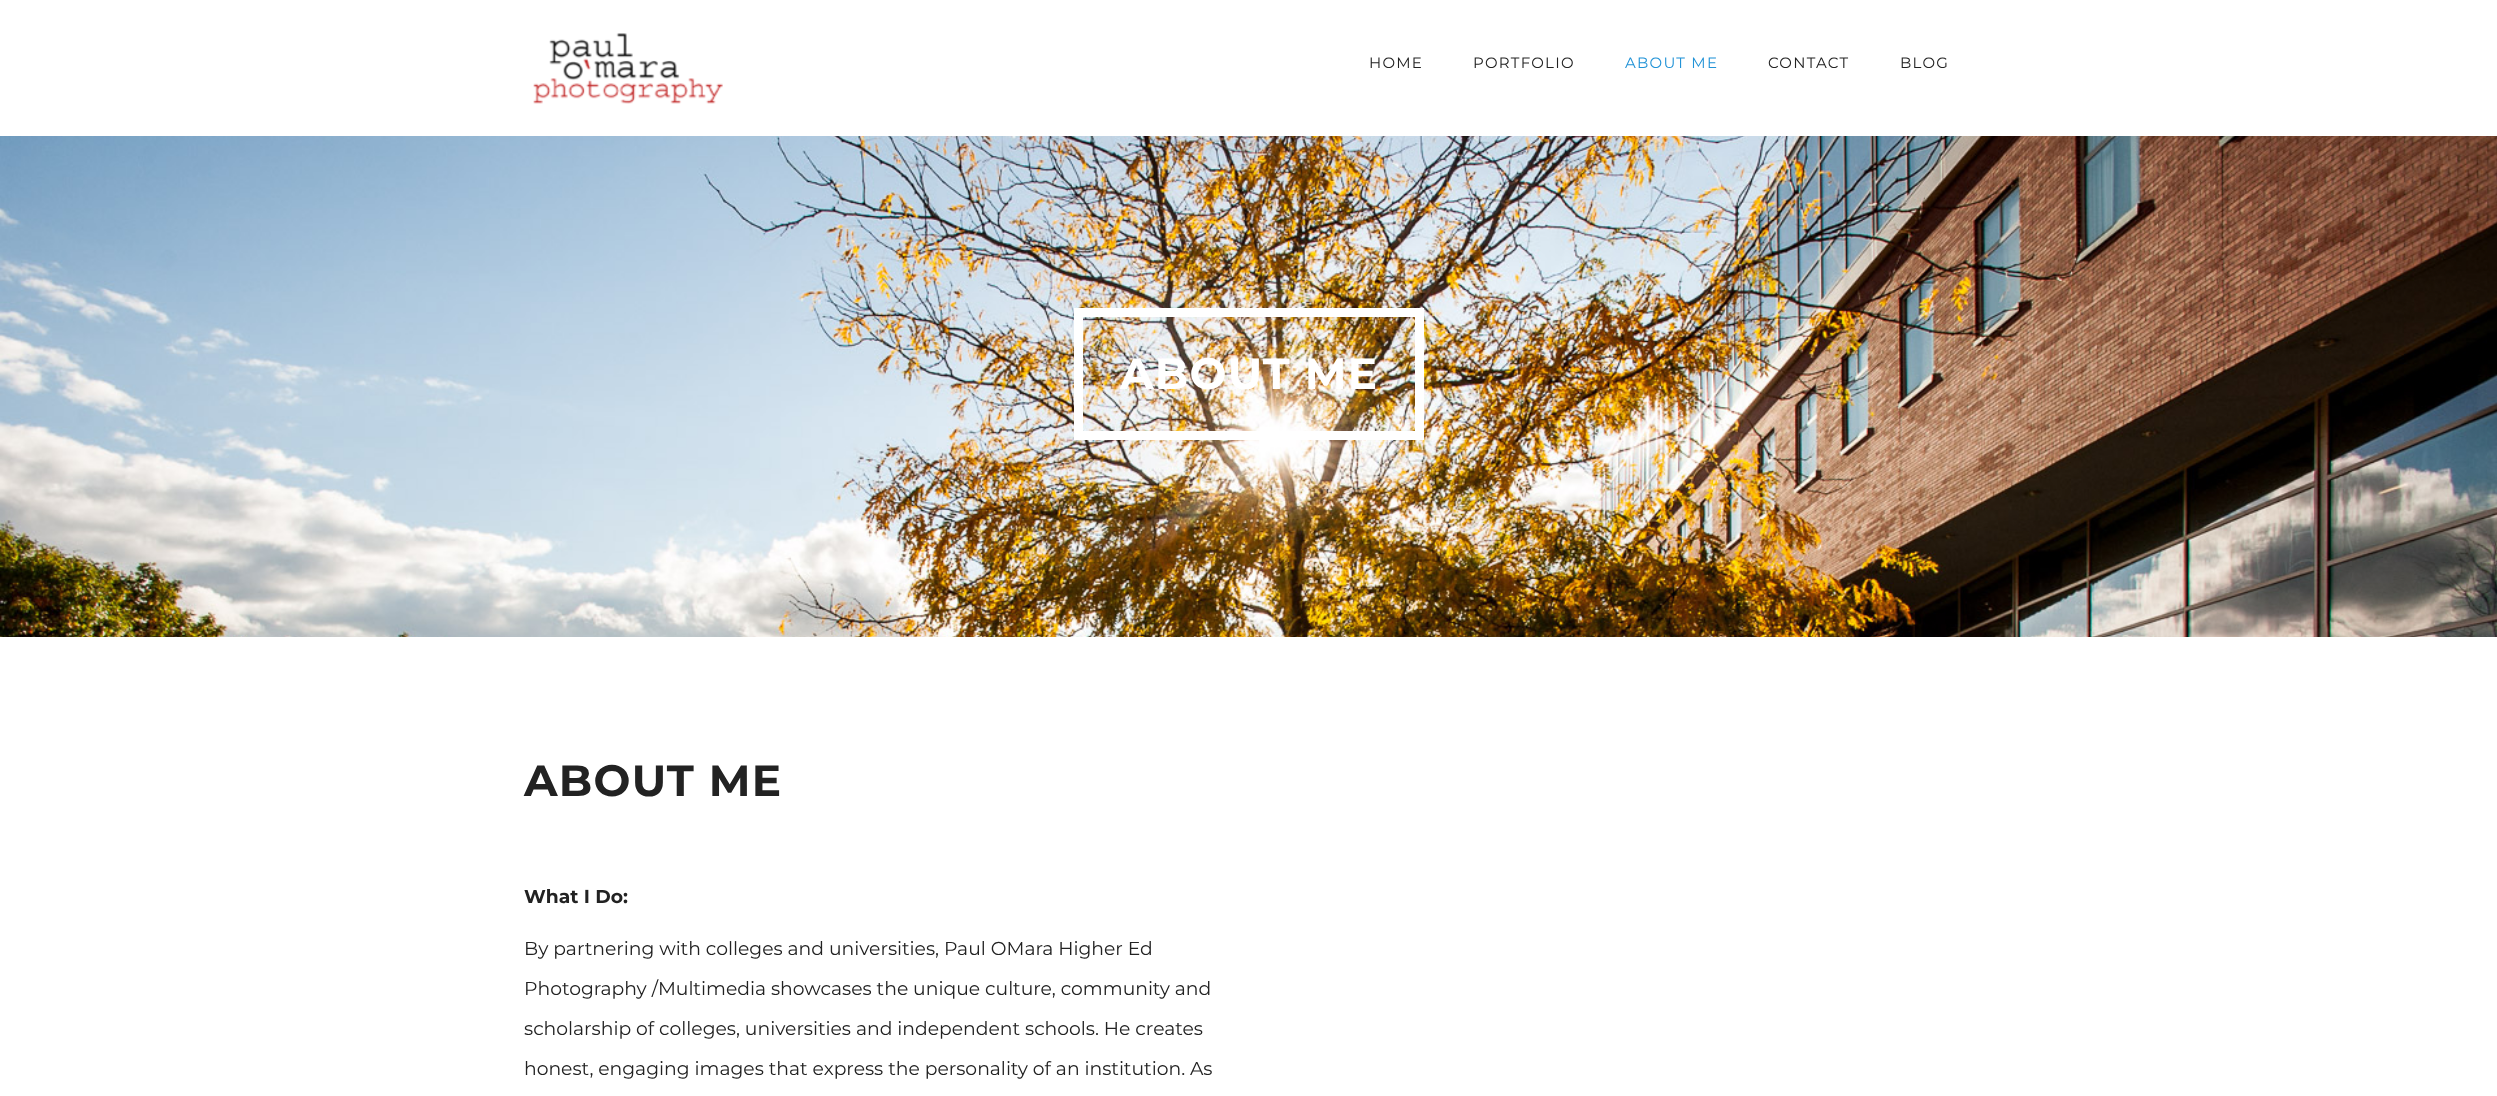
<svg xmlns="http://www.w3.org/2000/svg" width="2497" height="1096">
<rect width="100%" height="100%" fill="#fff"/>
<image x="533" y="33" width="190" height="71" href="media/1.png"/>
<text x="1369" y="68" style="font-family:Montserrat;font-size:15px;letter-spacing:1.25px;fill:#222">HOME</text>
<text x="1473" y="68" style="font-family:Montserrat;font-size:15px;letter-spacing:1.25px;fill:#222">PORTFOLIO</text>
<text x="1625" y="68" style="font-family:Montserrat;font-size:15px;letter-spacing:1.25px;fill:#2293d7">ABOUT ME</text>
<text x="1768" y="68" style="font-family:Montserrat;font-size:15px;letter-spacing:1.25px;fill:#222">CONTACT</text>
<text x="1900" y="68" style="font-family:Montserrat;font-size:15px;letter-spacing:1.25px;fill:#222">BLOG</text>
<image x="0" y="136" width="2497" height="501" href="media/2.png"/>
<rect x="1078.5" y="312.5" width="341" height="123" fill="none" stroke="#fff" stroke-width="9"/>
<text x="1120" y="389" style="font-family:Montserrat;font-size:43.75px;font-weight:bold;letter-spacing:1.25px;fill:#fff">ABOUT ME</text>
<text x="524" y="796" style="font-family:Montserrat;font-size:43.75px;font-weight:bold;letter-spacing:1.25px;fill:#222">ABOUT ME</text>
<text x="524" y="903" style="font-family:Montserrat;font-size:18.75px;font-weight:bold;fill:#222">What I Do:</text>
<text x="524" y="955" style="font-family:Montserrat;font-size:18.75px;fill:#222">By partnering with colleges and universities, Paul OMara Higher Ed</text>
<text x="524" y="995" style="font-family:Montserrat;font-size:18.75px;fill:#222">Photography /Multimedia showcases the unique culture, community and</text>
<text x="524" y="1035" style="font-family:Montserrat;font-size:18.75px;fill:#222">scholarship of colleges, universities and independent schools. He creates</text>
<text x="524" y="1075" style="font-family:Montserrat;font-size:18.75px;fill:#222">honest, engaging images that express the personality of an institution. As</text>
</svg>
